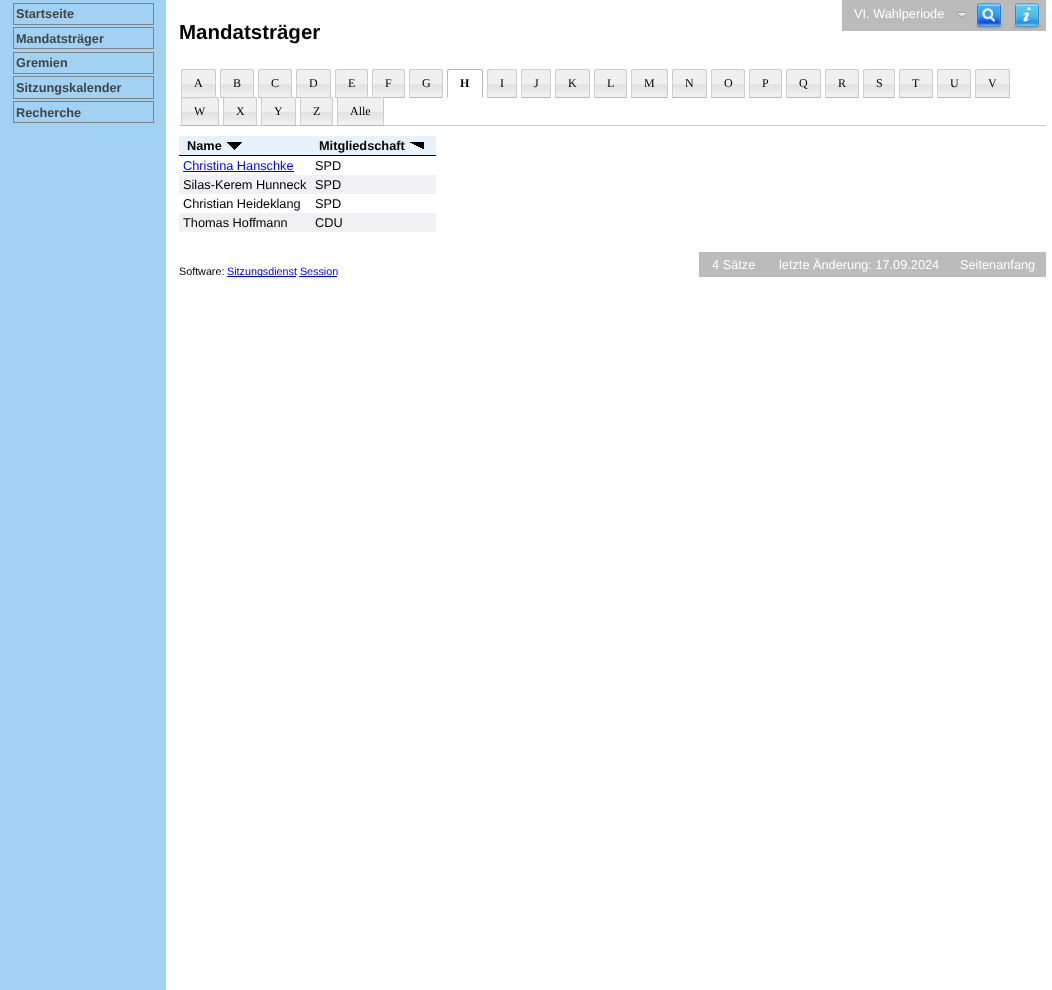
<svg xmlns="http://www.w3.org/2000/svg" width="1052" height="990">
<rect width="100%" height="100%" fill="#fff"/>
<rect width="166" height="990" fill="#a1d1f3"/>
<rect x="13.5" y="3.5" width="140" height="21" fill="none" stroke="#808080"/>
<text x="16" y="18" style="font-family:Liberation Sans;font-size:12.75px;font-weight:bold;fill:#444">Startseite</text>
<rect x="13.5" y="27.5" width="140" height="21" fill="none" stroke="#808080"/>
<text x="16" y="43" style="font-family:Liberation Sans;font-size:12.75px;font-weight:bold;fill:#444">Mandatsträger</text>
<rect x="13.5" y="52.5" width="140" height="21" fill="none" stroke="#808080"/>
<text x="16" y="67" style="font-family:Liberation Sans;font-size:12.75px;font-weight:bold;fill:#444">Gremien</text>
<rect x="13.5" y="76.5" width="140" height="22" fill="none" stroke="#808080"/>
<text x="16" y="92" style="font-family:Liberation Sans;font-size:12.75px;font-weight:bold;fill:#444">Sitzungskalender</text>
<rect x="13.5" y="101.5" width="140" height="21" fill="none" stroke="#808080"/>
<text x="16" y="117" style="font-family:Liberation Sans;font-size:12.75px;font-weight:bold;fill:#444">Recherche</text>
<rect x="842" width="204" height="31" fill="#bbb"/>
<image x="957" y="12" width="10" height="6" href="media/1.png"/>
<text x="854" y="18" style="font-family:Liberation Sans;font-size:12.75px;fill:#fff">VI. Wahlperiode</text>
<image x="974" y="3" width="30" height="26" href="media/2.png"/>
<image x="1012" y="3" width="30" height="26" href="media/3.png"/>
<text x="179" y="39" style="font-family:Liberation Sans;font-size:20.5px;font-weight:bold;fill:#000">Mandatsträger</text>
<rect x="179" y="125" width="867" height="1" fill="#ccc"/>
<path d="M183 69h31c1 0 2 1 2 2v27h-35v-27c0-1 1-2 2-2z" fill="#f0f0f0"/>
<image x="181" y="84" width="35" height="9" href="media/4.png"/>
<path d="M183 69l-1.5 .5l1 1l.5-.5h31l.5 .5l1-1l-1.5-.5z" fill="#ccc"/>
<path d="M216 98v-27l-.5-1.5l-1 1c1 .5 .5 23.5 .5 26.5zm-35 0l1-1c0-3-.5-26 .5-26.5l-1-1l-.5 1.5z" fill="#ccc"/>
<text x="194" y="87" style="font-family:Liberation Serif;font-size:12px;fill:#000">A</text>
<path d="M222 69h30c1 0 2 1 2 2v27h-34v-27c0-1 1-2 2-2z" fill="#f0f0f0"/>
<image x="220" y="84" width="34" height="9" href="media/5.png"/>
<path d="M222 69l-1.5 .5l1 1l.5-.5h30l.5 .5l1-1l-1.5-.5z" fill="#ccc"/>
<path d="M254 98v-27l-.5-1.5l-1 1c1 .5 .5 23.5 .5 26.5z" fill="#ccc"/>
<path d="M254 98l-1-1h-32l-1 1z" fill="#b7b7b7"/>
<path d="M220 98l1-1c0-3-.5-26 .5-26.5l-1-1l-.5 1.5z" fill="#ccc"/>
<text x="233" y="87" style="font-family:Liberation Serif;font-size:12px;fill:#000">B</text>
<path d="M260 69h30c1 0 2 1 2 2v27h-34v-27c0-1 1-2 2-2z" fill="#f0f0f0"/>
<image x="258" y="84" width="34" height="9" href="media/5.png"/>
<path d="M260 69l-1.5 .5l1 1l.5-.5h30l.5 .5l1-1l-1.5-.5z" fill="#ccc"/>
<path d="M292 98v-27l-.5-1.5l-1 1c1 .5 .5 23.5 .5 26.5z" fill="#ccc"/>
<path d="M292 98l-1-1h-32l-1 1z" fill="#b7b7b7"/>
<path d="M258 98l1-1c0-3-.5-26 .5-26.5l-1-1l-.5 1.5z" fill="#ccc"/>
<text x="271" y="87" style="font-family:Liberation Serif;font-size:12px;fill:#000">C</text>
<path d="M298 69h31c1 0 2 1 2 2v27h-35v-27c0-1 1-2 2-2z" fill="#f0f0f0"/>
<image x="296" y="84" width="35" height="9" href="media/4.png"/>
<path d="M298 69l-1.5 .5l1 1l.5-.5h31l.5 .5l1-1l-1.5-.5z" fill="#ccc"/>
<path d="M331 98v-27l-.5-1.5l-1 1c1 .5 .5 23.5 .5 26.5z" fill="#ccc"/>
<path d="M331 98l-1-1h-33l-1 1z" fill="#b7b7b7"/>
<path d="M296 98l1-1c0-3-.5-26 .5-26.5l-1-1l-.5 1.5z" fill="#ccc"/>
<text x="309" y="87" style="font-family:Liberation Serif;font-size:12px;fill:#000">D</text>
<path d="M337 69h29c1 0 2 1 2 2v27h-33v-27c0-1 1-2 2-2z" fill="#f0f0f0"/>
<image x="335" y="84" width="33" height="9" href="media/6.png"/>
<path d="M337 69l-1.5 .5l1 1l.5-.5h29l.5 .5l1-1l-1.5-.5z" fill="#ccc"/>
<path d="M368 98v-27l-.5-1.5l-1 1c1 .5 .5 23.5 .5 26.5z" fill="#ccc"/>
<path d="M368 98l-1-1h-31l-1 1z" fill="#b7b7b7"/>
<path d="M335 98l1-1c0-3-.5-26 .5-26.5l-1-1l-.5 1.5z" fill="#ccc"/>
<text x="348" y="87" style="font-family:Liberation Serif;font-size:12px;fill:#000">E</text>
<path d="M374 69h29c1 0 2 1 2 2v27h-33v-27c0-1 1-2 2-2z" fill="#f0f0f0"/>
<image x="372" y="84" width="33" height="9" href="media/6.png"/>
<path d="M374 69l-1.5 .5l1 1l.5-.5h29l.5 .5l1-1l-1.5-.5z" fill="#ccc"/>
<path d="M405 98v-27l-.5-1.5l-1 1c1 .5 .5 23.5 .5 26.5z" fill="#ccc"/>
<path d="M405 98l-1-1h-31l-1 1z" fill="#b7b7b7"/>
<path d="M372 98l1-1c0-3-.5-26 .5-26.5l-1-1l-.5 1.5z" fill="#ccc"/>
<text x="385" y="87" style="font-family:Liberation Serif;font-size:12px;fill:#000">F</text>
<path d="M411 69h30c1 0 2 1 2 2v27h-34v-27c0-1 1-2 2-2z" fill="#f0f0f0"/>
<image x="409" y="84" width="34" height="9" href="media/5.png"/>
<path d="M411 69l-1.5 .5l1 1l.5-.5h30l.5 .5l1-1l-1.5-.5z" fill="#ccc"/>
<path d="M443 98v-27l-.5-1.5l-1 1c1 .5 .5 23.5 .5 26.5z" fill="#ccc"/>
<path d="M443 98l-1-1h-32l-1 1z" fill="#b7b7b7"/>
<path d="M409 98l1-1c0-3-.5-26 .5-26.5l-1-1l-.5 1.5z" fill="#ccc"/>
<text x="422" y="87" style="font-family:Liberation Serif;font-size:12px;fill:#000">G</text>
<path d="M449 69l-1.5 .5l1 1l.5-.5h32l.5 .5l1-1l-1.5-.5z" fill="#b7b7b7"/>
<path d="M483 98v-27l-.5-1.5l-1 1c1 .5 .5 23.5 .5 26.5z" fill="#b7b7b7"/>
<path d="M483 98l-1-1h-34l-1 1z" fill="#fff"/>
<path d="M447 98l1-1c0-3-.5-26 .5-26.5l-1-1l-.5 1.5z" fill="#b7b7b7"/>
<text x="460" y="87" style="font-family:Liberation Serif;font-size:12px;font-weight:bold;fill:#000">H</text>
<path d="M489 69h26c1 0 2 1 2 2v27h-30v-27c0-1 1-2 2-2z" fill="#f0f0f0"/>
<image x="487" y="84" width="30" height="9" href="media/7.png"/>
<path d="M489 69l-1.5 .5l1 1c.5-1 26.5-1 27 0l1-1l-1.5-.5z" fill="#ccc"/>
<path d="M517 98v-27l-.5-1.5l-1 1c1 .5 .5 23.5 .5 26.5z" fill="#ccc"/>
<path d="M517 98l-1-1h-28l-1 1z" fill="#b7b7b7"/>
<path d="M487 98l1-1c0-3-.5-26 .5-26.5l-1-1l-.5 1.5z" fill="#ccc"/>
<text x="500" y="87" style="font-family:Liberation Serif;font-size:12px;fill:#000">I</text>
<path d="M523 69h26c1 0 2 1 2 2v27h-30v-27c0-1 1-2 2-2z" fill="#f0f0f0"/>
<image x="521" y="84" width="30" height="9" href="media/7.png"/>
<path d="M523 69l-1.5 .5l1 1c.5-1 26.5-1 27 0l1-1l-1.5-.5z" fill="#ccc"/>
<path d="M551 98v-27l-.5-1.5l-1 1c1 .5 .5 23.5 .5 26.5z" fill="#ccc"/>
<path d="M551 98l-1-1h-28l-1 1z" fill="#b7b7b7"/>
<path d="M521 98l1-1c0-3-.5-26 .5-26.5l-1-1l-.5 1.5z" fill="#ccc"/>
<text x="534" y="87" style="font-family:Liberation Serif;font-size:12px;fill:#000">J</text>
<path d="M557 69h31c1 0 2 1 2 2v27h-35v-27c0-1 1-2 2-2z" fill="#f0f0f0"/>
<image x="555" y="84" width="35" height="9" href="media/4.png"/>
<path d="M557 69l-1.5 .5l1 1l.5-.5h31l.5 .5l1-1l-1.5-.5z" fill="#ccc"/>
<path d="M590 98v-27l-.5-1.5l-1 1c1 .5 .5 23.5 .5 26.5z" fill="#ccc"/>
<path d="M590 98l-1-1h-33l-1 1z" fill="#b7b7b7"/>
<path d="M555 98l1-1c0-3-.5-26 .5-26.5l-1-1l-.5 1.5z" fill="#ccc"/>
<text x="568" y="87" style="font-family:Liberation Serif;font-size:12px;fill:#000">K</text>
<path d="M596 69h29c1 0 2 1 2 2v27h-33v-27c0-1 1-2 2-2z" fill="#f0f0f0"/>
<image x="594" y="84" width="33" height="9" href="media/6.png"/>
<path d="M596 69l-1.5 .5l1 1l.5-.5h29l.5 .5l1-1l-1.5-.5z" fill="#ccc"/>
<path d="M627 98v-27l-.5-1.5l-1 1c1 .5 .5 23.5 .5 26.5z" fill="#ccc"/>
<path d="M627 98l-1-1h-31l-1 1z" fill="#b7b7b7"/>
<path d="M594 98l1-1c0-3-.5-26 .5-26.5l-1-1l-.5 1.5z" fill="#ccc"/>
<text x="607" y="87" style="font-family:Liberation Serif;font-size:12px;fill:#000">L</text>
<path d="M633 69h33c1 0 2 1 2 2v27h-37v-27c0-1 1-2 2-2z" fill="#f0f0f0"/>
<image x="631" y="84" width="37" height="9" href="media/8.png"/>
<path d="M633 69l-1.5 .5l1 1l.5-.5h33l.5 .5l1-1l-1.5-.5z" fill="#ccc"/>
<path d="M668 98v-27l-.5-1.5l-1 1c1 .5 .5 23.5 .5 26.5z" fill="#ccc"/>
<path d="M668 98l-1-1h-35l-1 1z" fill="#b7b7b7"/>
<path d="M631 98l1-1c0-3-.5-26 .5-26.5l-1-1l-.5 1.5z" fill="#ccc"/>
<text x="644" y="87" style="font-family:Liberation Serif;font-size:12px;fill:#000">M</text>
<path d="M674 69h31c1 0 2 1 2 2v27h-35v-27c0-1 1-2 2-2z" fill="#f0f0f0"/>
<image x="672" y="84" width="35" height="9" href="media/4.png"/>
<path d="M674 69l-1.5 .5l1 1l.5-.5h31l.5 .5l1-1l-1.5-.5z" fill="#ccc"/>
<path d="M707 98v-27l-.5-1.5l-1 1c1 .5 .5 23.5 .5 26.5z" fill="#ccc"/>
<path d="M707 98l-1-1h-33l-1 1z" fill="#b7b7b7"/>
<path d="M672 98l1-1c0-3-.5-26 .5-26.5l-1-1l-.5 1.5z" fill="#ccc"/>
<text x="685" y="87" style="font-family:Liberation Serif;font-size:12px;fill:#000">N</text>
<path d="M713 69h30c1 0 2 1 2 2v27h-34v-27c0-1 1-2 2-2z" fill="#f0f0f0"/>
<image x="711" y="84" width="34" height="9" href="media/5.png"/>
<path d="M713 69l-1.5 .5l1 1l.5-.5h30l.5 .5l1-1l-1.5-.5z" fill="#ccc"/>
<path d="M745 98v-27l-.5-1.5l-1 1c1 .5 .5 23.5 .5 26.5z" fill="#ccc"/>
<path d="M745 98l-1-1h-32l-1 1z" fill="#b7b7b7"/>
<path d="M711 98l1-1c0-3-.5-26 .5-26.5l-1-1l-.5 1.5z" fill="#ccc"/>
<text x="724" y="87" style="font-family:Liberation Serif;font-size:12px;fill:#000">O</text>
<path d="M751 69h29c1 0 2 1 2 2v27h-33v-27c0-1 1-2 2-2z" fill="#f0f0f0"/>
<image x="749" y="84" width="33" height="9" href="media/6.png"/>
<path d="M751 69l-1.5 .5l1 1l.5-.5h29l.5 .5l1-1l-1.5-.5z" fill="#ccc"/>
<path d="M782 98v-27l-.5-1.5l-1 1c1 .5 .5 23.5 .5 26.5z" fill="#ccc"/>
<path d="M782 98l-1-1h-31l-1 1z" fill="#b7b7b7"/>
<path d="M749 98l1-1c0-3-.5-26 .5-26.5l-1-1l-.5 1.5z" fill="#ccc"/>
<text x="762" y="87" style="font-family:Liberation Serif;font-size:12px;fill:#000">P</text>
<path d="M788 69h31c1 0 2 1 2 2v27h-35v-27c0-1 1-2 2-2z" fill="#f0f0f0"/>
<image x="786" y="84" width="35" height="9" href="media/4.png"/>
<path d="M788 69l-1.5 .5l1 1l.5-.5h31l.5 .5l1-1l-1.5-.5z" fill="#ccc"/>
<path d="M821 98v-27l-.5-1.5l-1 1c1 .5 .5 23.5 .5 26.5z" fill="#ccc"/>
<path d="M821 98l-1-1h-33l-1 1z" fill="#b7b7b7"/>
<path d="M786 98l1-1c0-3-.5-26 .5-26.5l-1-1l-.5 1.5z" fill="#ccc"/>
<text x="799" y="87" style="font-family:Liberation Serif;font-size:12px;fill:#000">Q</text>
<path d="M827 69h30c1 0 2 1 2 2v27h-34v-27c0-1 1-2 2-2z" fill="#f0f0f0"/>
<image x="825" y="84" width="34" height="9" href="media/5.png"/>
<path d="M827 69l-1.5 .5l1 1l.5-.5h30l.5 .5l1-1l-1.5-.5z" fill="#ccc"/>
<path d="M859 98v-27l-.5-1.5l-1 1c1 .5 .5 23.5 .5 26.5z" fill="#ccc"/>
<path d="M859 98l-1-1h-32l-1 1z" fill="#b7b7b7"/>
<path d="M825 98l1-1c0-3-.5-26 .5-26.5l-1-1l-.5 1.5z" fill="#ccc"/>
<text x="838" y="87" style="font-family:Liberation Serif;font-size:12px;fill:#000">R</text>
<path d="M865 69h28c1 0 2 1 2 2v27h-32v-27c0-1 1-2 2-2z" fill="#f0f0f0"/>
<image x="863" y="84" width="32" height="9" href="media/9.png"/>
<path d="M865 69l-1.5 .5l1 1l.5-.5h28l.5 .5l1-1l-1.5-.5z" fill="#ccc"/>
<path d="M895 98v-27l-.5-1.5l-1 1c1 .5 .5 23.5 .5 26.5z" fill="#ccc"/>
<path d="M895 98l-1-1h-30l-1 1z" fill="#b7b7b7"/>
<path d="M863 98l1-1c0-3-.5-26 .5-26.5l-1-1l-.5 1.5z" fill="#ccc"/>
<text x="876" y="87" style="font-family:Liberation Serif;font-size:12px;fill:#000">S</text>
<path d="M901 69h30c1 0 2 1 2 2v27h-34v-27c0-1 1-2 2-2z" fill="#f0f0f0"/>
<image x="899" y="84" width="34" height="9" href="media/5.png"/>
<path d="M901 69l-1.5 .5l1 1l.5-.5h30l.5 .5l1-1l-1.5-.5z" fill="#ccc"/>
<path d="M933 98v-27l-.5-1.5l-1 1c1 .5 .5 23.5 .5 26.5z" fill="#ccc"/>
<path d="M933 98l-1-1h-32l-1 1z" fill="#b7b7b7"/>
<path d="M899 98l1-1c0-3-.5-26 .5-26.5l-1-1l-.5 1.5z" fill="#ccc"/>
<text x="912" y="87" style="font-family:Liberation Serif;font-size:12px;fill:#000">T</text>
<path d="M939 69h30c1 0 2 1 2 2v27h-34v-27c0-1 1-2 2-2z" fill="#f0f0f0"/>
<image x="937" y="84" width="34" height="9" href="media/5.png"/>
<path d="M939 69l-1.5 .5l1 1l.5-.5h30l.5 .5l1-1l-1.5-.5z" fill="#ccc"/>
<path d="M971 98v-27l-.5-1.5l-1 1c1 .5 .5 23.5 .5 26.5z" fill="#ccc"/>
<path d="M971 98l-1-1h-32l-1 1z" fill="#b7b7b7"/>
<path d="M937 98l1-1c0-3-.5-26 .5-26.5l-1-1l-.5 1.5z" fill="#ccc"/>
<text x="950" y="87" style="font-family:Liberation Serif;font-size:12px;fill:#000">U</text>
<path d="M977 69h31c1 0 2 1 2 2v27h-35v-27c0-1 1-2 2-2z" fill="#f0f0f0"/>
<image x="975" y="84" width="35" height="9" href="media/4.png"/>
<path d="M977 69l-1.5 .5l1 1l.5-.5h31l.5 .5l1-1l-1.5-.5z" fill="#ccc"/>
<path d="M1010 98v-27l-.5-1.5l-1 1c1 .5 .5 23.5 .5 26.5z" fill="#ccc"/>
<path d="M1010 98l-1-1h-33l-1 1z" fill="#b7b7b7"/>
<path d="M975 98l1-1c0-3-.5-26 .5-26.5l-1-1l-.5 1.5z" fill="#ccc"/>
<text x="988" y="87" style="font-family:Liberation Serif;font-size:12px;fill:#000">V</text>
<path d="M183 97h34c1 0 2 1 2 2v27h-38v-27c0-1 1-2 2-2z" fill="#f0f0f0"/>
<image x="181" y="112" width="38" height="9" href="media/10.png"/>
<path d="M183 97l-1.5 .5l1 1l29-.5c2 0 4.5-1 6 .5l1-1l-1.5-.5z" fill="#ccc"/>
<path d="M219 126v-27l-.5-1.5l-1 1c1 .5 .5 23.5 .5 26.5z" fill="#ccc"/>
<path d="M219 126l-1-1h-36l-1 1z" fill="#b7b7b7"/>
<path d="M181 126l1-1c0-3-.5-26 .5-26.5l-1-1l-.5 1.5z" fill="#ccc"/>
<text x="194" y="115" style="font-family:Liberation Serif;font-size:12px;fill:#000">W</text>
<path d="M225 97h30c1 0 2 1 2 2v27h-34v-27c0-1 1-2 2-2z" fill="#f0f0f0"/>
<image x="223" y="112" width="34" height="9" href="media/5.png"/>
<path d="M225 97l-1.5 .5l1 1l.5-.5h30l.5 .5l1-1l-1.5-.5z" fill="#ccc"/>
<path d="M257 126v-27l-.5-1.5l-1 1c1 .5 .5 23.5 .5 26.5z" fill="#ccc"/>
<path d="M257 126l-1-1h-32l-1 1z" fill="#b7b7b7"/>
<path d="M223 126l1-1c0-3-.5-26 .5-26.5l-1-1l-.5 1.5z" fill="#ccc"/>
<text x="236" y="115" style="font-family:Liberation Serif;font-size:12px;fill:#000">X</text>
<path d="M263 97h31c1 0 2 1 2 2v27h-35v-27c0-1 1-2 2-2z" fill="#f0f0f0"/>
<image x="261" y="112" width="35" height="9" href="media/4.png"/>
<path d="M263 97l-1.5 .5l1 1l.5-.5h31l.5 .5l1-1l-1.5-.5z" fill="#ccc"/>
<path d="M296 126v-27l-.5-1.5l-1 1c1 .5 .5 23.5 .5 26.5z" fill="#ccc"/>
<path d="M296 126l-1-1h-33l-1 1z" fill="#b7b7b7"/>
<path d="M261 126l1-1c0-3-.5-26 .5-26.5l-1-1l-.5 1.5z" fill="#ccc"/>
<text x="274" y="115" style="font-family:Liberation Serif;font-size:12px;fill:#000">Y</text>
<path d="M302 97h29c1 0 2 1 2 2v27h-33v-27c0-1 1-2 2-2z" fill="#f0f0f0"/>
<image x="300" y="112" width="33" height="9" href="media/6.png"/>
<path d="M302 97l-1.5 .5l1 1l.5-.5h29l.5 .5l1-1l-1.5-.5z" fill="#ccc"/>
<path d="M333 126v-27l-.5-1.5l-1 1c1 .5 .5 23.5 .5 26.5z" fill="#ccc"/>
<path d="M333 126l-1-1h-31l-1 1z" fill="#b7b7b7"/>
<path d="M300 126l1-1c0-3-.5-26 .5-26.5l-1-1l-.5 1.5z" fill="#ccc"/>
<text x="313" y="115" style="font-family:Liberation Serif;font-size:12px;fill:#000">Z</text>
<path d="M339 97h43c1 0 2 1 2 2v27h-47v-27c0-1 1-2 2-2z" fill="#f0f0f0"/>
<image x="338" y="112" width="45" height="9" href="media/11.png"/>
<path d="M339 97l-1 1h1h44l-1-1zm45 29v-27l-.5-1.5l-.5 .5v27z" fill="#ccc"/>
<path d="M384 126l-1-1h-45l-1 1z" fill="#b7b7b7"/>
<path d="M337 126l1-1v-26l.5-.5l-1-1l-.5 1.5z" fill="#ccc"/>
<text x="350" y="115" style="font-family:Liberation Serif;font-size:12px;fill:#000">Alle</text>
<rect x="179" y="136" width="257" height="19" fill="#e6f3fc"/>
<rect x="179" y="155" width="257" height="1" fill="#000"/>
<text x="187" y="150" style="font-family:Liberation Sans;font-size:12.75px;font-weight:bold;fill:#000">Name</text>
<image x="227" y="142" width="15" height="8" href="media/12.png"/>
<text x="319" y="150" style="font-family:Liberation Sans;font-size:12.75px;font-weight:bold;fill:#000">Mitgliedschaft</text>
<image x="410" y="142" width="14" height="8" href="media/13.png"/>
<text x="183" y="170" style="font-family:Liberation Sans;font-size:12.75px;fill:#00e">Christina Hanschke</text>
<rect x="183" y="171" width="111" height="1" fill="#00e"/>
<text x="315" y="170" style="font-family:Liberation Sans;font-size:12.75px;fill:#000">SPD</text>
<rect x="179" y="175" width="257" height="19" fill="#f1f0f2"/>
<text x="183" y="189" style="font-family:Liberation Sans;font-size:12.75px;fill:#000">Silas-Kerem Hunneck</text>
<text x="315" y="189" style="font-family:Liberation Sans;font-size:12.75px;fill:#000">SPD</text>
<text x="183" y="208" style="font-family:Liberation Sans;font-size:12.75px;fill:#000">Christian Heideklang</text>
<text x="315" y="208" style="font-family:Liberation Sans;font-size:12.75px;fill:#000">SPD</text>
<rect x="179" y="213" width="257" height="19" fill="#f1f0f2"/>
<text x="183" y="227" style="font-family:Liberation Sans;font-size:12.75px;fill:#000">Thomas Hoffmann</text>
<text x="315" y="227" style="font-family:Liberation Sans;font-size:12.75px;fill:#000">CDU</text>
<text x="179" y="275" style="font-family:Liberation Sans;font-size:10.75px;fill:#000">Software:</text>
<rect x="227" y="276" width="69" height="1" fill="#00e"/>
<text x="227" y="275" style="font-family:Liberation Sans;font-size:10.75px;fill:#00e">Sitzungsdienst Session</text>
<rect x="299" y="276" width="38" height="1" fill="#00e"/>
<rect x="699" y="252" width="347" height="25" fill="#bbb"/>
<text x="712" y="269" style="font-family:Liberation Sans;font-size:12.75px;fill:#fff">4 Sätze</text>
<text x="779" y="269" style="font-family:Liberation Sans;font-size:12.75px;fill:#fff">letzte Änderung: 17.09.2024</text>
<text x="960" y="269" style="font-family:Liberation Sans;font-size:12.75px;fill:#fff">Seitenanfang</text>
</svg>
